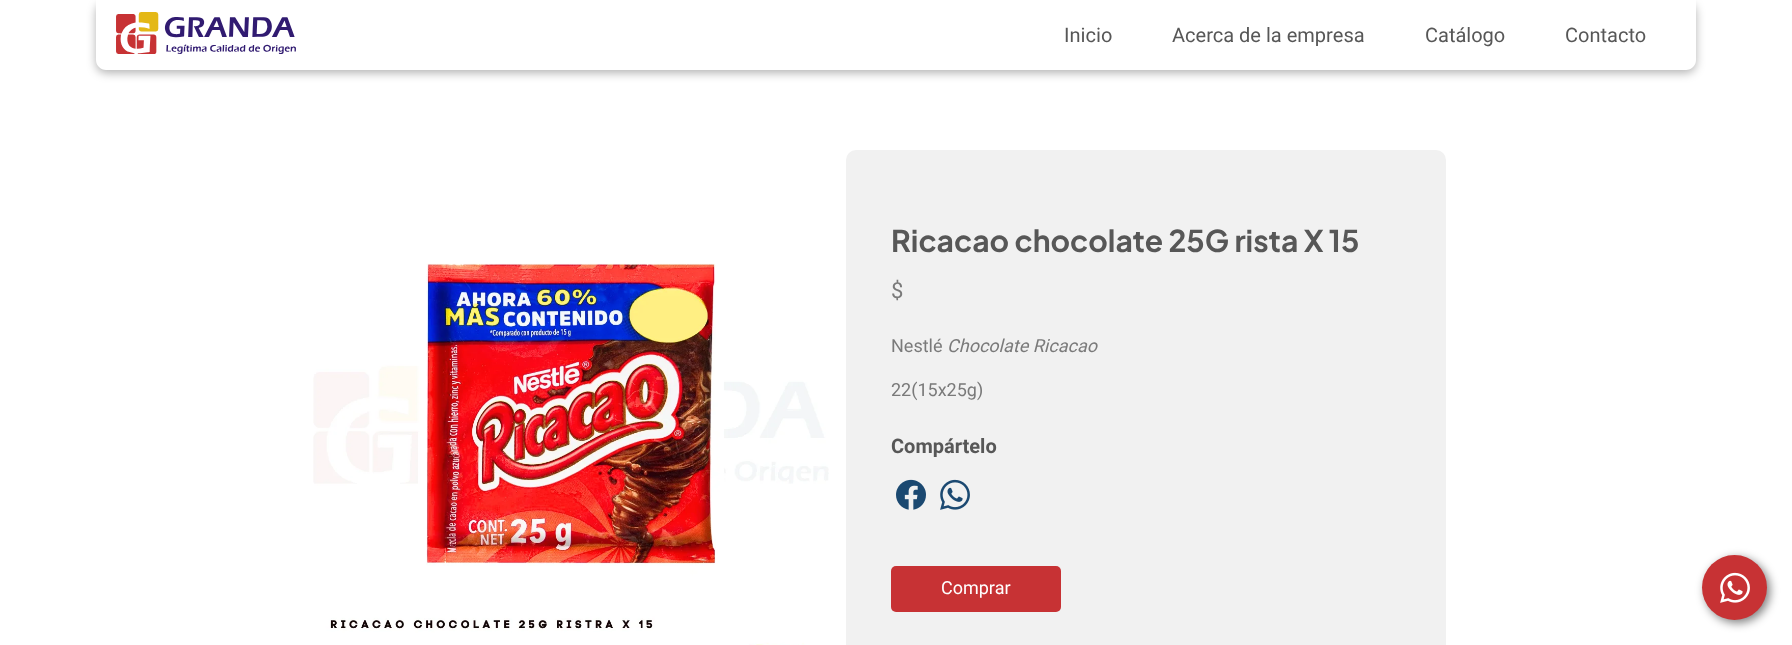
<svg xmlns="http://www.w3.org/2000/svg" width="1792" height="645">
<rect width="100%" height="100%" fill="#fff"/>
<rect x="96" y="3" width="1600" height="70" rx="10" fill="#0000004d" filter="blur(5px)"/>
<path d="M96 0h1600v60c0 5.5-4.5 10-10 10h-1580c-5.5 0-10-4.5-10-10z" fill="#fff"/>
<image x="116" y="12" width="180" height="42" href="media/1.png"/>
<text x="1064" y="42" style="font-family:Heebo;font-size:20px;fill:#575757">Inicio</text>
<text x="1172" y="42" style="font-family:Heebo;font-size:20px;fill:#575757">Acerca de la empresa</text>
<text x="1425" y="42" style="font-family:Heebo;font-size:20px;fill:#575757">Catálogo</text>
<text x="1565" y="42" style="font-family:Heebo;font-size:20px;fill:#575757">Contacto</text>
<image x="313" y="263" width="516" height="382" href="media/2.png"/>
<rect x="846" y="150" width="600" height="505" rx="10" fill="#f1f1f1"/>
<text x="891" y="252" style="font-family:Plus Jakarta Sans;font-size:30px;font-weight:bold;fill:#575757">Ricacao chocolate 25G rista X 15</text>
<text x="891" y="298" style="font-family:Heebo;font-size:22px;fill:#7a7a7a">$</text>
<text x="891" y="352" style="font-family:Heebo;font-size:18px;fill:#7a7a7a">Nestlé</text>
<text x="947" y="352" style="font-family:Heebo;font-size:18px;font-style:italic;fill:#7a7a7a">Chocolate Ricacao</text>
<text x="891" y="396" style="font-family:Heebo;font-size:18px;fill:#7a7a7a">22(15x25g)</text>
<text x="891" y="453" style="font-family:Heebo;font-size:20px;font-weight:bold;fill:#575757">Compártelo</text>
<image x="896" y="479" width="30" height="31" href="media/3.png"/>
<image x="940" y="479" width="30" height="31" href="media/4.png"/>
<rect x="891" y="566" width="170" height="46" rx="5" fill="#c73234"/>
<text x="941" y="594" style="font-family:Heebo;font-size:18px;fill:#fff">Comprar</text>
<rect x="1705" y="558" width="65" height="65" rx="32.5" fill="#00000080" filter="blur(5px)"/>
<circle cx="1734.5" cy="587.5" r="32.5" fill="#c73234"/>
<image x="1720" y="572" width="30" height="31" href="media/5.png"/>
</svg>
